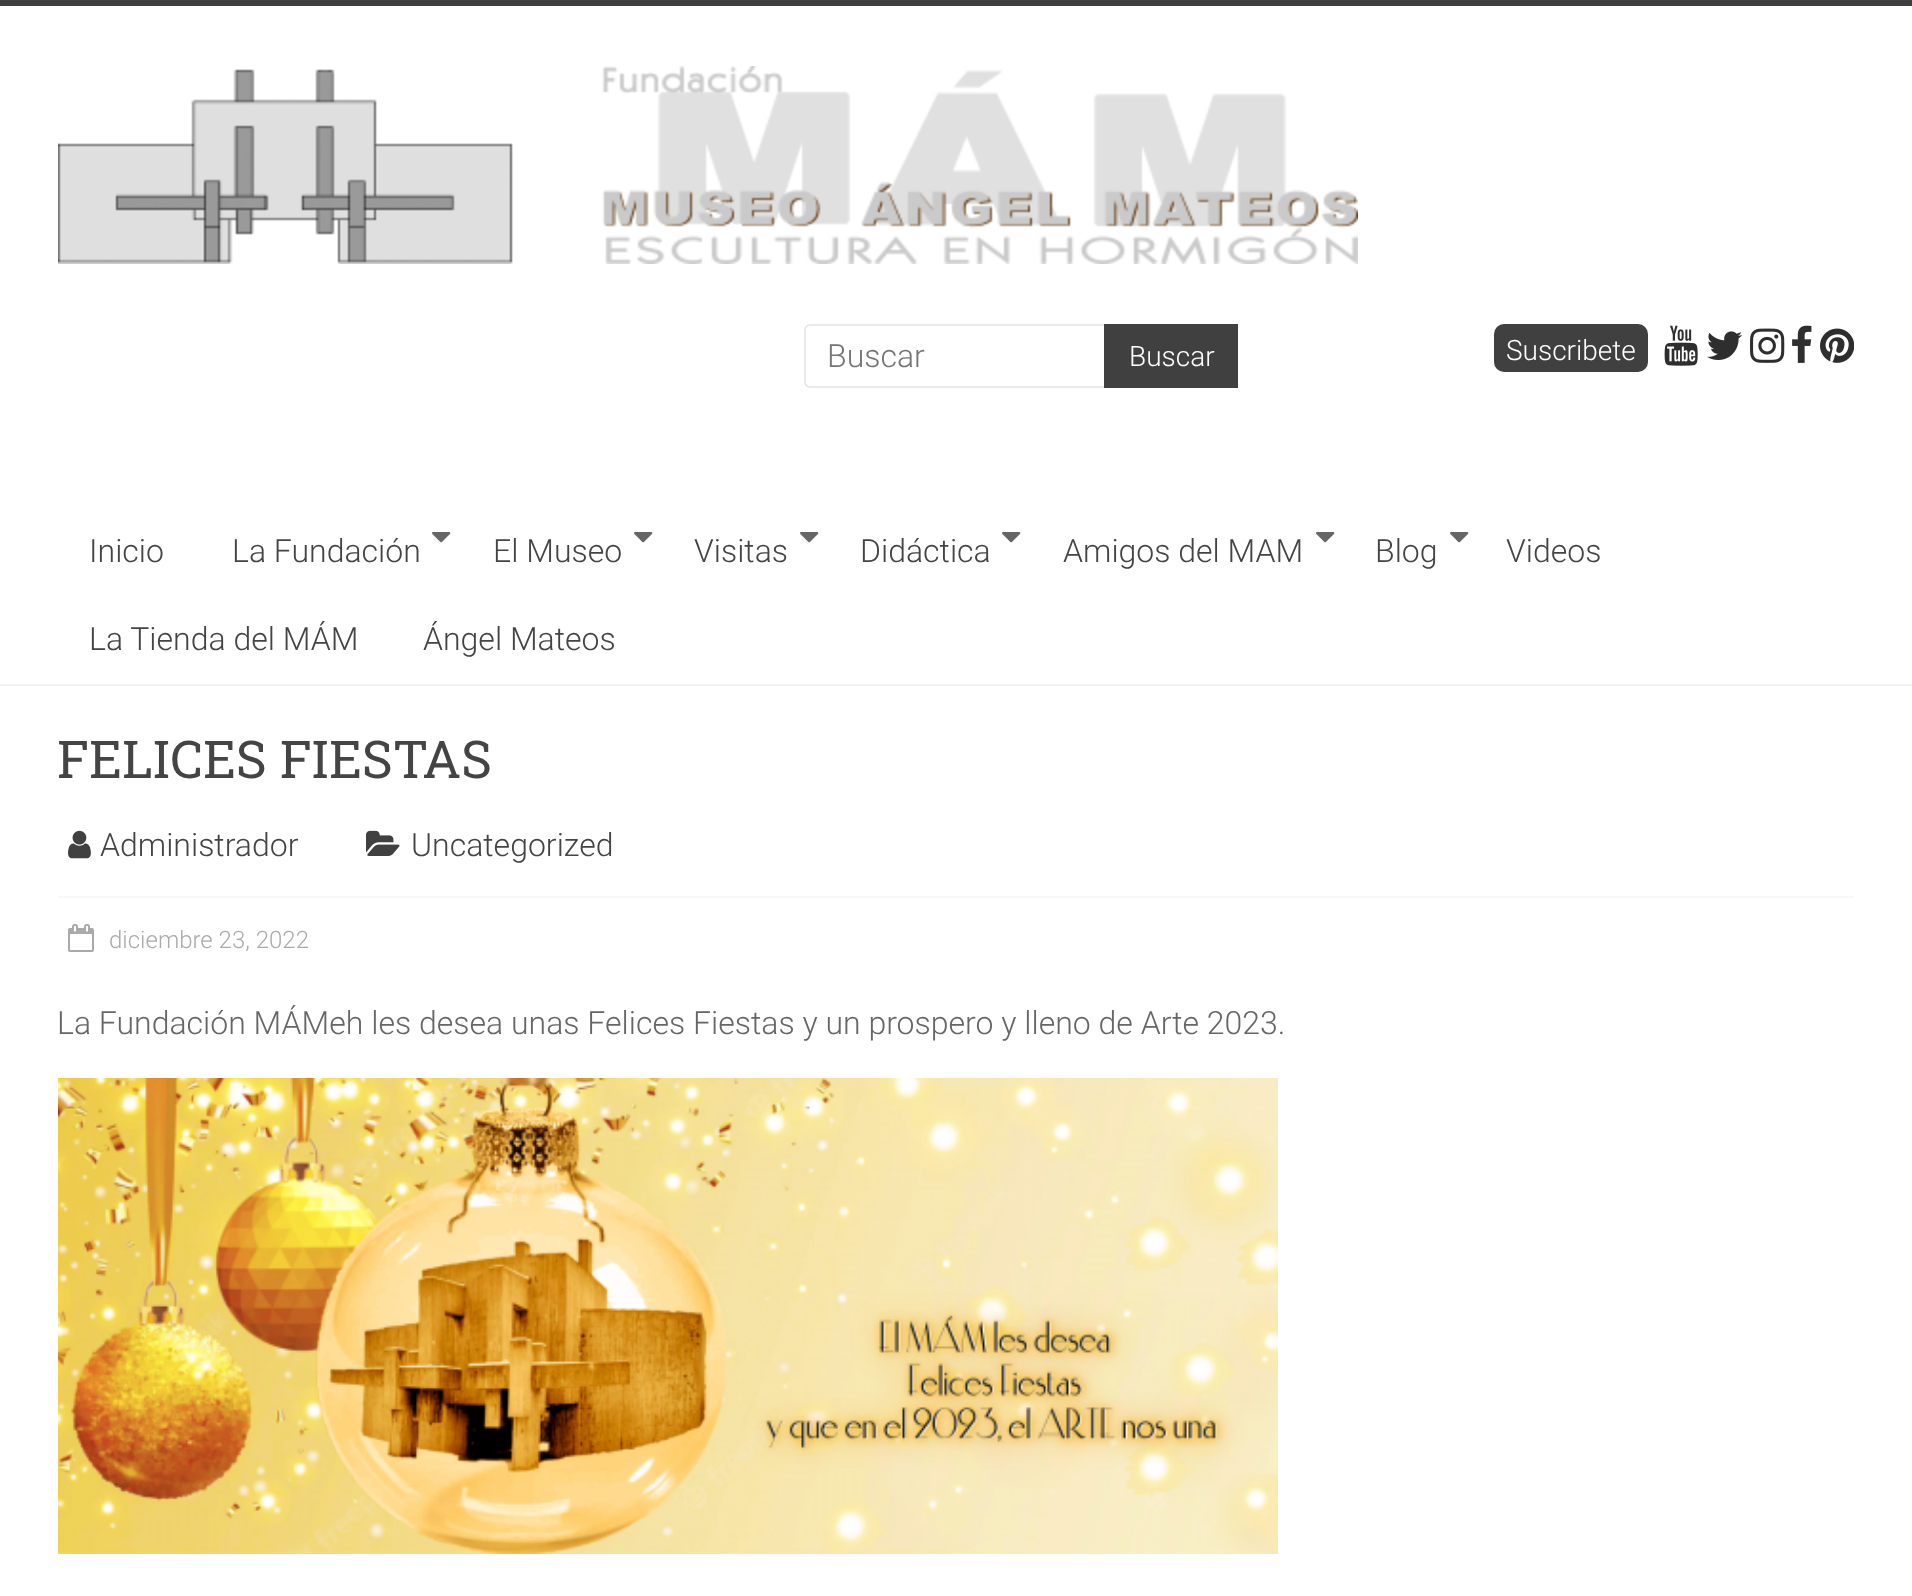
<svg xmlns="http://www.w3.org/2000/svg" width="1912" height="1596">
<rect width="100%" height="100%" fill="#fff"/>
<rect width="1912" height="6" fill="#404040"/>
<rect y="684" width="1912" height="2" fill="#f2f2f2"/>
<image x="58" y="66" width="1300" height="198" href="media/1.png"/>
<path d="M810 324h294v64h-294c-3 0-6-3-6-6v-52c0-3 3-6 6-6zm0 2h294v60h-294c-2 0-4-2-4-4v-52c0-2 2-4 4-4z" fill="#eaeaea" fill-rule="evenodd"/>
<text x="827" y="367" style="font-family:Roboto;font-size:32px;font-weight:300;fill:#757575">Buscar</text>
<rect x="1104" y="324" width="134" height="64" fill="#404040"/>
<text x="1129" y="366" style="font-family:Roboto;font-size:28px;font-weight:300;fill:#fff">Buscar</text>
<rect x="1494" y="324" width="154" height="48" rx="10" fill="#404040"/>
<text x="1506" y="360" style="font-family:Roboto;font-size:28px;font-weight:300;fill:#fff">Suscribete</text>
<image x="1664" y="325" width="34" height="41" href="media/2.png"/>
<image x="1707" y="331" width="35" height="29" href="media/3.png"/>
<image x="1750" y="328" width="35" height="35" href="media/4.png"/>
<image x="1792" y="325" width="20" height="38" href="media/5.png"/>
<image x="1820" y="328" width="34" height="35" href="media/6.png"/>
<text x="89" y="562" style="font-family:Roboto;font-size:32px;font-weight:300;fill:#444">Inicio</text>
<text x="232" y="562" style="font-family:Roboto;font-size:32px;font-weight:300;fill:#444">La Fundación</text>
<image x="432" y="532" width="19" height="11" href="media/7.png"/>
<text x="493" y="562" style="font-family:Roboto;font-size:32px;font-weight:300;fill:#444">El Museo</text>
<image x="634" y="532" width="19" height="11" href="media/7.png"/>
<text x="694" y="562" style="font-family:Roboto;font-size:32px;font-weight:300;fill:#444">Visitas</text>
<image x="800" y="532" width="19" height="11" href="media/7.png"/>
<text x="860" y="562" style="font-family:Roboto;font-size:32px;font-weight:300;fill:#444">Didáctica</text>
<image x="1002" y="532" width="19" height="11" href="media/7.png"/>
<text x="1063" y="562" style="font-family:Roboto;font-size:32px;font-weight:300;fill:#444">Amigos del MAM</text>
<image x="1316" y="532" width="19" height="11" href="media/7.png"/>
<text x="1375" y="562" style="font-family:Roboto;font-size:32px;font-weight:300;fill:#444">Blog</text>
<image x="1450" y="532" width="19" height="11" href="media/7.png"/>
<text x="1506" y="562" style="font-family:Roboto;font-size:32px;font-weight:300;fill:#444">Videos</text>
<text x="89" y="650" style="font-family:Roboto;font-size:32px;font-weight:300;fill:#444">La Tienda del MÁM</text>
<text x="423" y="650" style="font-family:Roboto;font-size:32px;font-weight:300;fill:#444">Ángel Mateos</text>
<text x="57" y="778" style="font-family:Roboto Slab;font-size:52px;fill:#444">FELICES FIESTAS</text>
<image x="68" y="830" width="23" height="29" href="media/8.png"/>
<text x="100" y="856" style="font-family:Roboto;font-size:32px;font-weight:300;fill:#444">Administrador</text>
<image x="366" y="830" width="34" height="26" href="media/9.png"/>
<text x="411" y="856" style="font-family:Roboto;font-size:32px;font-weight:300;fill:#444">Uncategorized</text>
<rect x="58" y="896" width="1796" height="2" fill="#f8f8f8"/>
<image x="68" y="924" width="26" height="28" href="media/10.png"/>
<text x="109" y="948" style="font-family:Roboto;font-size:24px;font-weight:300;fill:#aaa">diciembre 23, 2022</text>
<text x="57" y="1034" style="font-family:Roboto;font-size:32px;font-weight:300;fill:#666">La Fundación MÁMeh les desea unas Felices Fiestas y un prospero y lleno de Arte 2023.</text>
<image x="58" y="1078" width="1220" height="476" href="media/11.png"/>
</svg>
